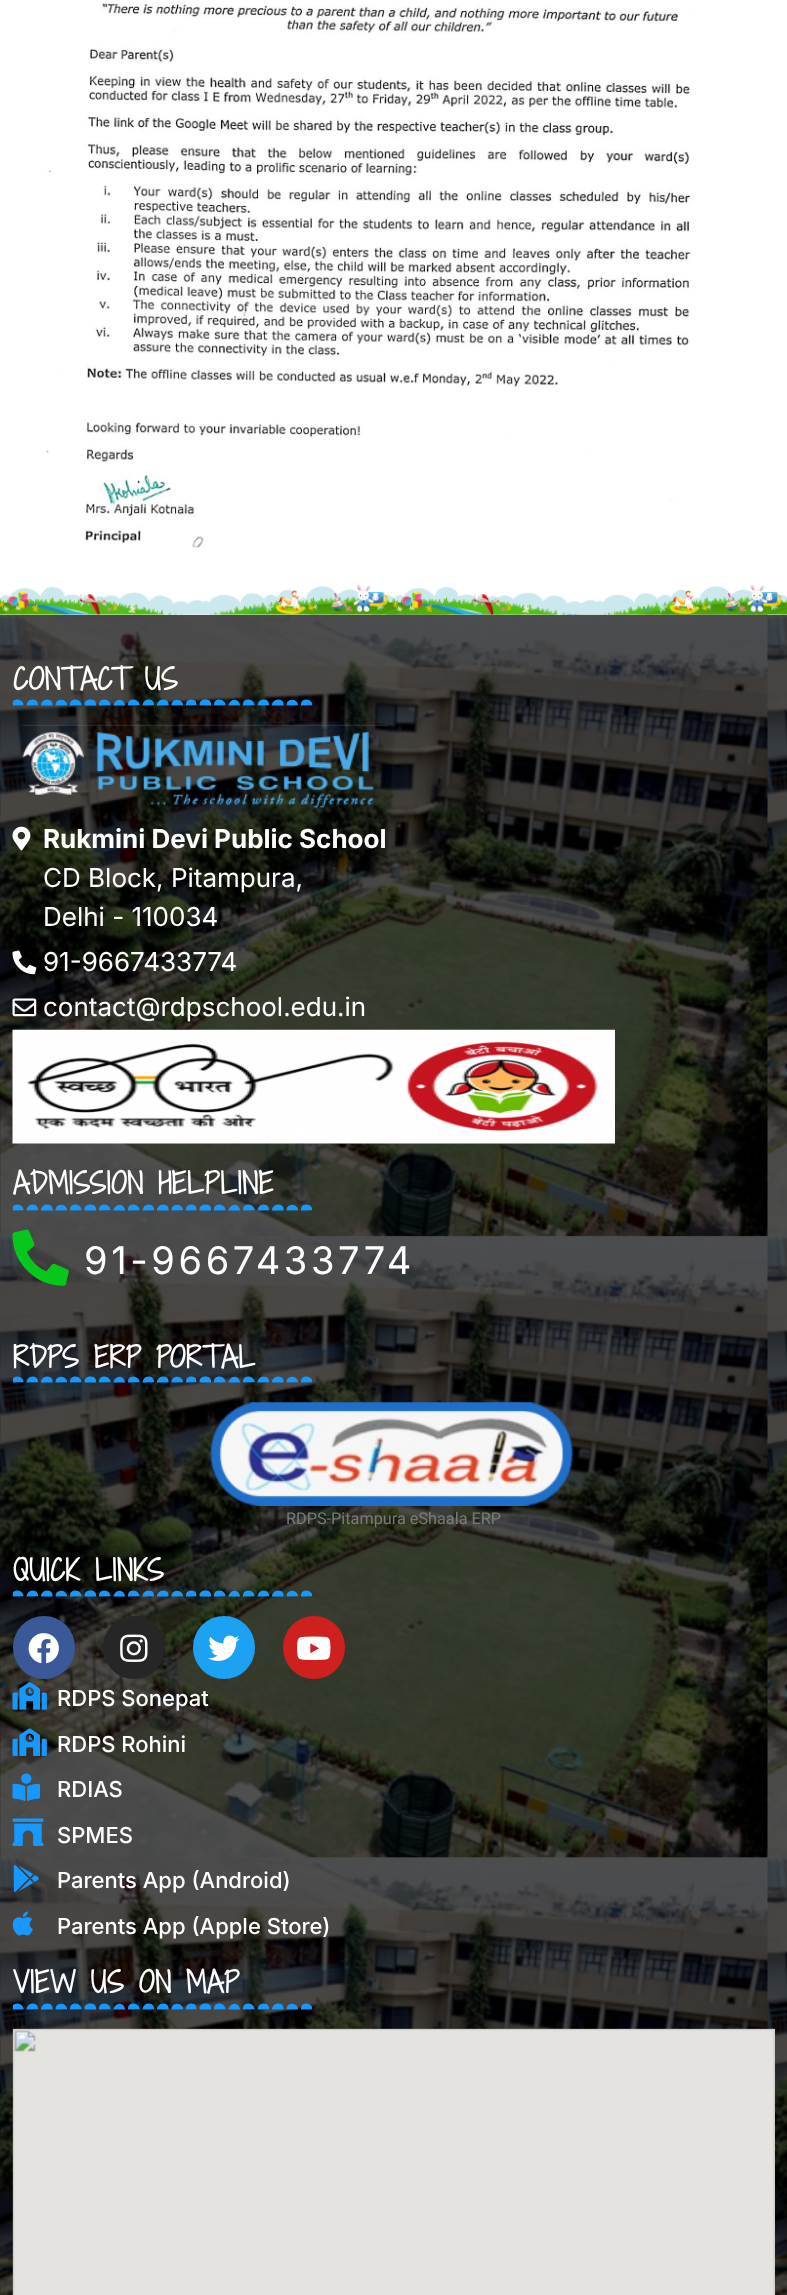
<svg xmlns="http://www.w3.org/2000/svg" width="787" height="2295">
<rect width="100%" height="100%" fill="#fff"/>
<image x="46" y="2" width="678" height="546" href="media/1.png"/>
<image x="0" y="584" width="787" height="31" href="media/2.png"/>
<image x="0" y="614" width="787" height="1681" href="media/3.png"/>
<text x="13" y="690" style="font-family:Shadows Into Light Two;font-size:28px;font-weight:bold;letter-spacing:0.6px;fill:#fff">CONTACT US</text>
<image x="12" y="699" width="301" height="7" href="media/4.png"/>
<image x="21" y="724" width="367" height="85" href="media/5.png"/>
<image x="12" y="826" width="19" height="25" href="media/6.png"/>
<text x="43" y="848" style="font-family:Inter;font-size:26px;font-weight:bold;fill:#fff">Rukmini Devi Public School</text>
<text x="43" y="887" style="font-family:Inter;font-size:26px;fill:#fff">CD Block, Pitampura,</text>
<text x="43" y="926" style="font-family:Inter;font-size:26px;fill:#fff">Delhi - 110034</text>
<image x="12" y="950" width="25" height="25" href="media/7.png"/>
<text x="43" y="971" style="font-family:Inter;font-size:26px;fill:#fff">91-9667433774</text>
<image x="12" y="998" width="25" height="19" href="media/8.png"/>
<text x="43" y="1016" style="font-family:Inter;font-size:26px;fill:#fff">contact@rdpschool.edu.in</text>
<image x="12" y="1029" width="603" height="115" href="media/9.png"/>
<text x="13" y="1194" style="font-family:Shadows Into Light Two;font-size:28px;font-weight:bold;letter-spacing:0.6px;fill:#fff">ADMISSION HELPLINE</text>
<image x="12" y="1204" width="301" height="7" href="media/10.png"/>
<image x="12" y="1229" width="57" height="57" href="media/11.png"/>
<text x="84" y="1274" style="font-family:Inter;font-size:38px;letter-spacing:3.6px;fill:#fff">91-9667433774</text>
<text x="13" y="1368" style="font-family:Shadows Into Light Two;font-size:28px;font-weight:bold;letter-spacing:0.6px;fill:#fff">RDPS ERP PORTAL</text>
<image x="12" y="1376" width="301" height="7" href="media/12.png"/>
<image x="210" y="1402" width="363" height="104" href="media/13.png"/>
<text x="286" y="1524" style="font-family:Roboto;font-size:16.25px;fill:#7a7a7a">RDPS-Pitampura eShaala ERP</text>
<text x="13" y="1581" style="font-family:Shadows Into Light Two;font-size:28px;font-weight:bold;letter-spacing:0.6px;fill:#fff">QUICK LINKS</text>
<image x="12" y="1590" width="301" height="7" href="media/14.png"/>
<rect x="13" y="1616" width="62" height="63" rx="31" fill="#3b5998"/>
<image x="28" y="1633" width="31" height="31" href="media/15.png"/>
<rect x="103" y="1616" width="62" height="63" rx="31" fill="#262626"/>
<image x="120" y="1634" width="28" height="28" href="media/16.png"/>
<rect x="193" y="1616" width="62" height="63" rx="31" fill="#1da1f2"/>
<image x="208" y="1635" width="32" height="26" href="media/17.png"/>
<rect x="283" y="1616" width="62" height="63" rx="31" fill="#cd201f"/>
<image x="297" y="1636" width="34" height="24" href="media/18.png"/>
<image x="12" y="1682" width="35" height="28" href="media/19.png"/>
<text x="57" y="1706" style="font-family:Inter;font-size:22px;font-weight:500;fill:#fff">RDPS Sonepat</text>
<image x="12" y="1728" width="35" height="28" href="media/20.png"/>
<text x="57" y="1752" style="font-family:Inter;font-size:22px;font-weight:500;fill:#fff">RDPS Rohini</text>
<image x="12" y="1773" width="28" height="28" href="media/21.png"/>
<text x="57" y="1797" style="font-family:Inter;font-size:22px;font-weight:500;fill:#fff">RDIAS</text>
<image x="12" y="1818" width="32" height="28" href="media/22.png"/>
<text x="57" y="1843" style="font-family:Inter;font-size:22px;font-weight:500;fill:#fff">SPMES</text>
<image x="13" y="1864" width="26" height="29" href="media/23.png"/>
<text x="57" y="1888" style="font-family:Inter;font-size:22px;font-weight:500;fill:#fff">Parents App (Android)</text>
<image x="12" y="1911" width="21" height="25" href="media/24.png"/>
<text x="57" y="1934" style="font-family:Inter;font-size:22px;font-weight:500;fill:#fff">Parents App (Apple Store)</text>
<text x="13" y="1993" style="font-family:Shadows Into Light Two;font-size:28px;font-weight:bold;letter-spacing:0.6px;fill:#fff">VIEW US ON MAP</text>
<image x="12" y="2003" width="301" height="7" href="media/25.png"/>
<image x="12" y="2028" width="763" height="267" href="media/26.png"/>
</svg>
